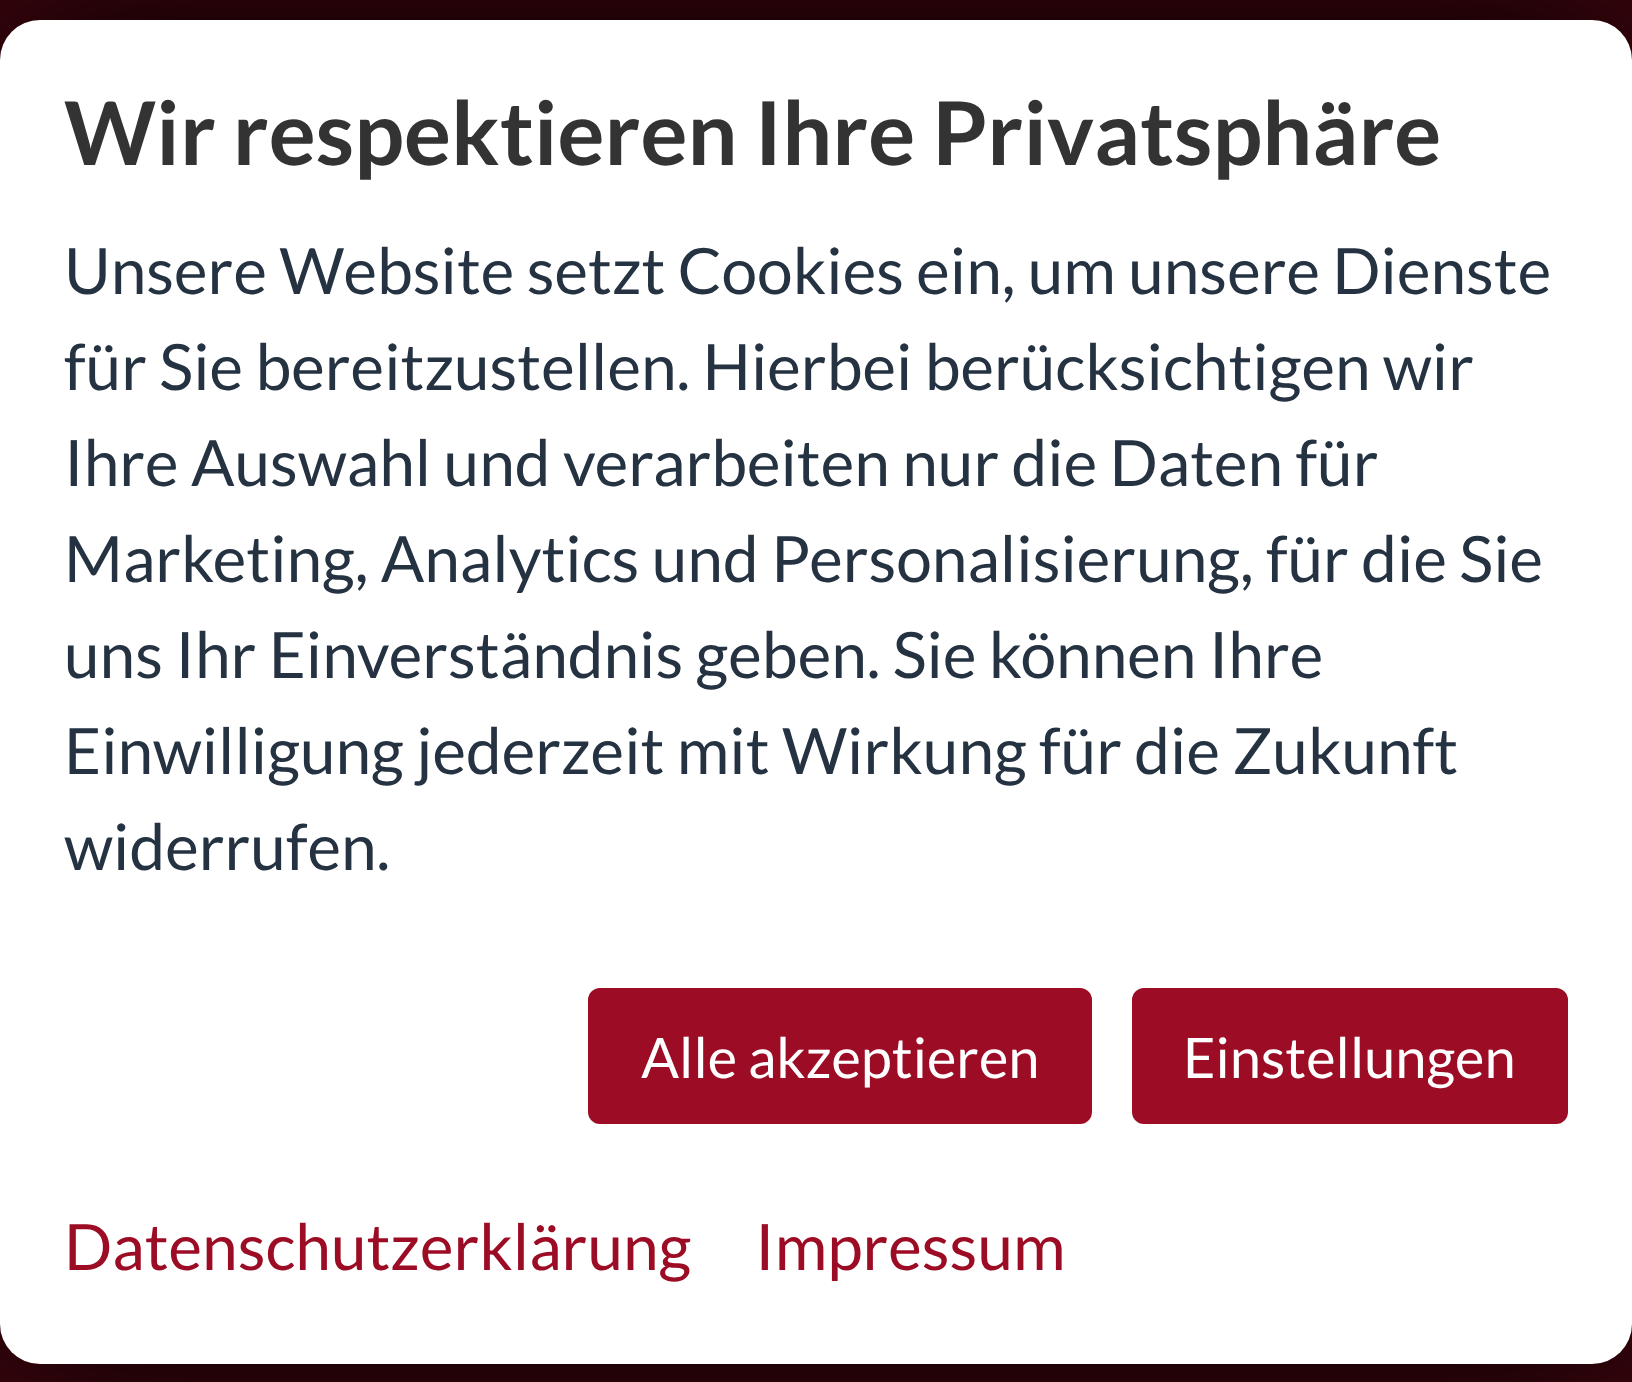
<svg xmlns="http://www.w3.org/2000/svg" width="1632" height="1382">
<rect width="100%" height="100%" fill="#3e050e"/>
<rect y="20" width="1632" height="1344" rx="40" fill="#000" filter="blur(80px)"/>
<rect y="20" width="1632" height="1344" rx="40" fill="#fff"/>
<text x="64" y="165" style="font-family:Lato;font-size:88px;font-weight:bold;fill:#333">Wir respektieren Ihre Privatsphäre</text>
<text x="64" y="294" style="font-family:Lato;font-size:64px;fill:#253241">Unsere Website setzt Cookies ein, um unsere Dienste</text>
<text x="64" y="390" style="font-family:Lato;font-size:64px;fill:#253241">für Sie bereitzustellen. Hierbei berücksichtigen wir</text>
<text x="64" y="486" style="font-family:Lato;font-size:64px;fill:#253241">Ihre Auswahl und verarbeiten nur die Daten für</text>
<text x="64" y="582" style="font-family:Lato;font-size:64px;fill:#253241">Marketing, Analytics und Personalisierung, für die Sie</text>
<text x="64" y="678" style="font-family:Lato;font-size:64px;fill:#253241">uns Ihr Einverständnis geben. Sie können Ihre</text>
<text x="64" y="774" style="font-family:Lato;font-size:64px;fill:#253241">Einwilligung jederzeit mit Wirkung für die Zukunft</text>
<text x="64" y="870" style="font-family:Lato;font-size:64px;fill:#253241">widerrufen.</text>
<rect x="590" y="990" width="500" height="132" rx="10" fill="#9c0c24" stroke="#9c0c24" stroke-width="4"/>
<text x="641" y="1078" style="font-family:Lato;font-size:56px;fill:#fff">Alle akzeptieren</text>
<rect x="1134" y="990" width="432" height="132" rx="10" fill="#9c0c24" stroke="#9c0c24" stroke-width="4"/>
<text x="1183" y="1078" style="font-family:Lato;font-size:56px;fill:#fff">Einstellungen</text>
<text x="64" y="1270" style="font-family:Lato;font-size:64px;fill:#9c0c24">Datenschutzerklärung</text>
<text x="755" y="1270" style="font-family:Lato;font-size:64px;fill:#9c0c24">Impressum</text>
</svg>
